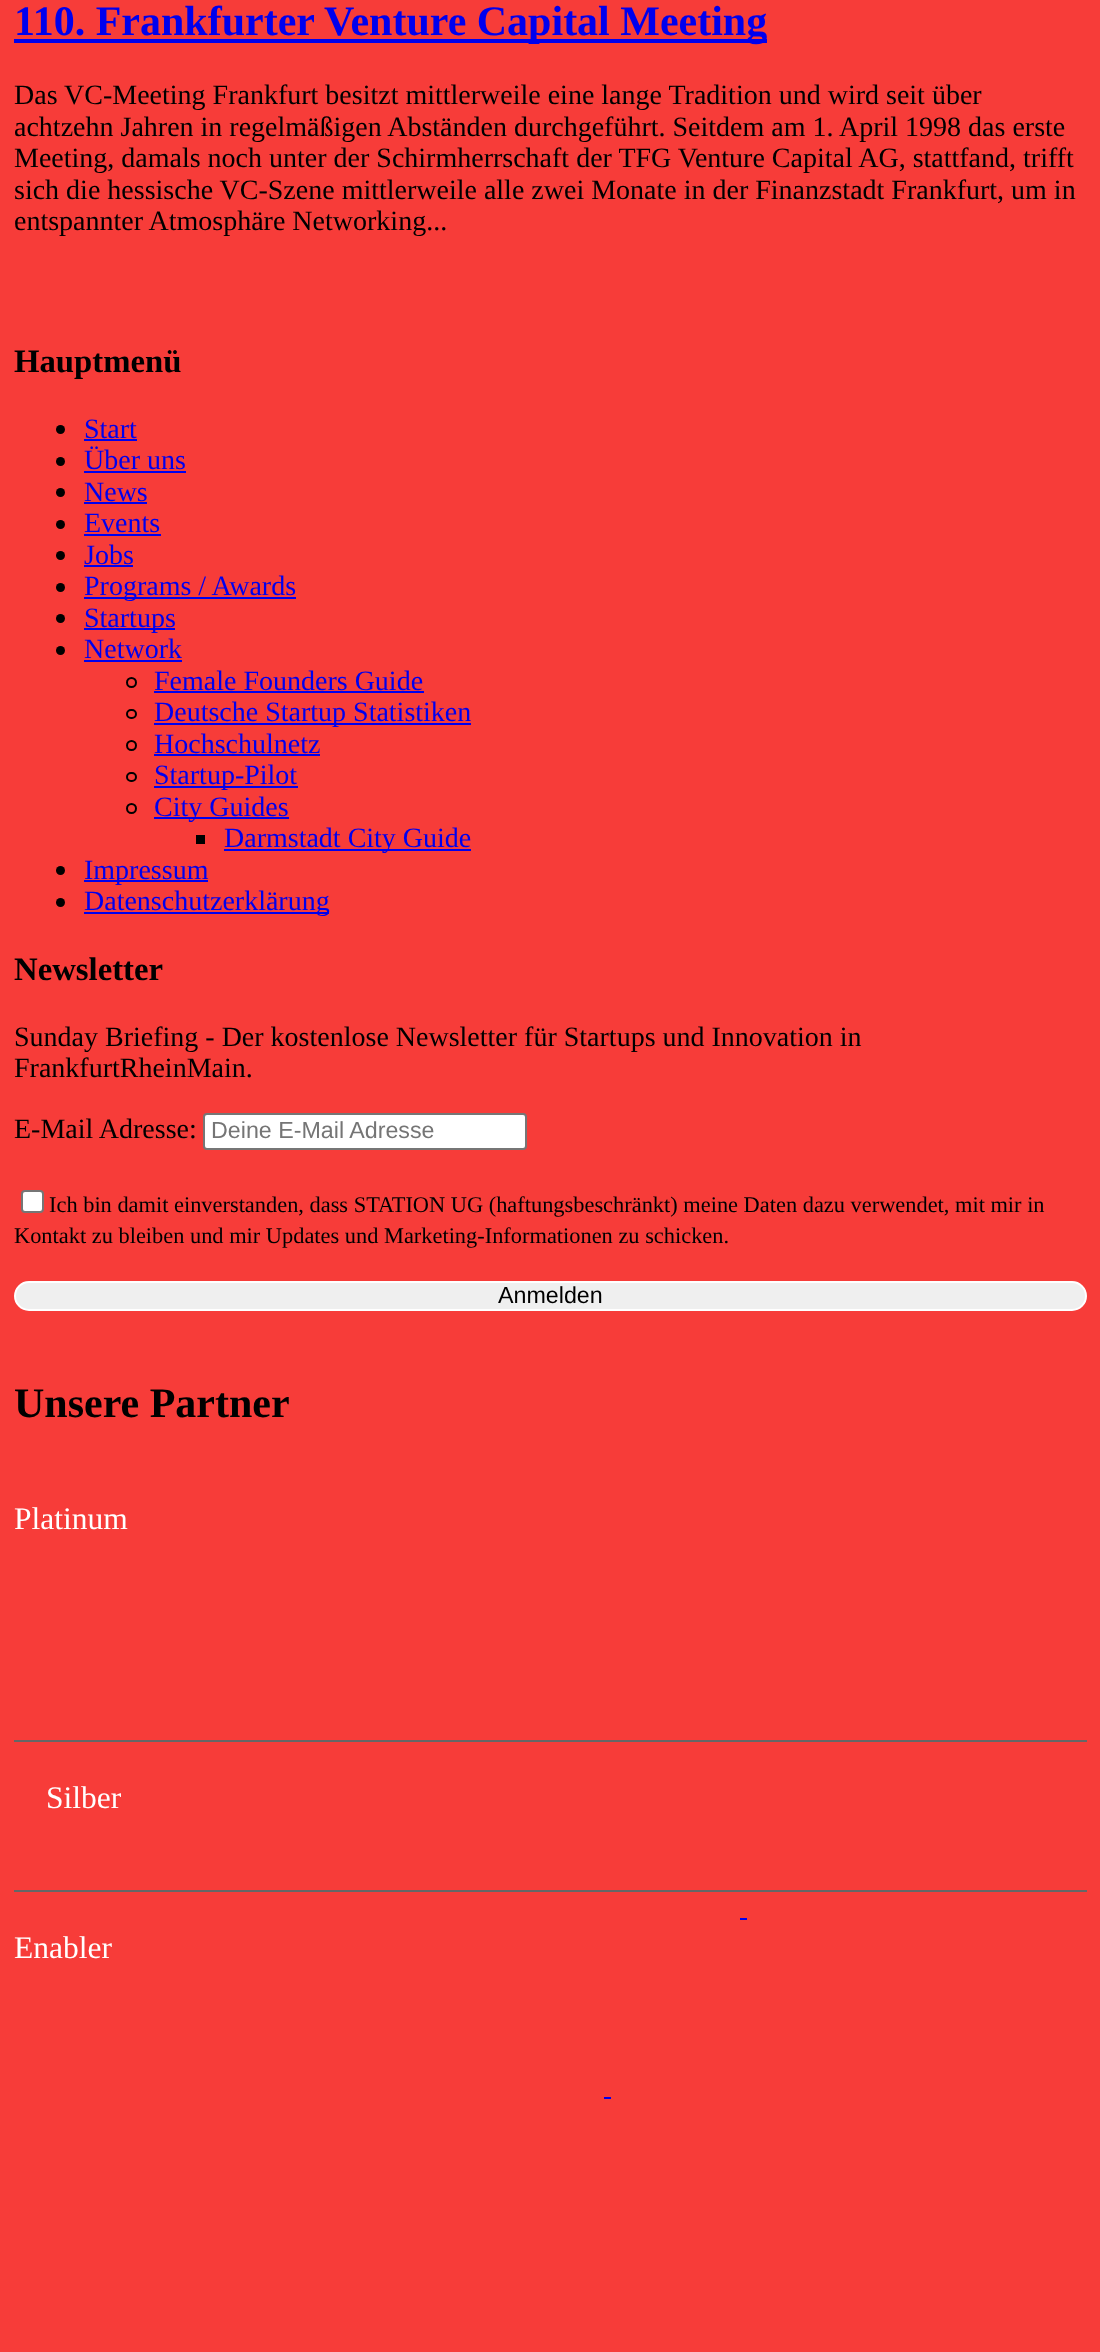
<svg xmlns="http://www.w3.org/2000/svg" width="1100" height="2352">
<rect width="100%" height="100%" fill="#f73c39"/>
<rect x="14" y="39" width="753" height="4" fill="#00e"/>
<text x="14" y="35" style="font-family:Liberation Serif;font-size:42px;font-weight:bold;fill:#00e">110. Frankfurter Venture Capital Meeting</text>
<text x="14" y="104" style="font-family:Liberation Serif;font-size:28px;fill:#000">Das VC-Meeting Frankfurt besitzt mittlerweile eine lange Tradition und wird seit über</text>
<text x="14" y="136" style="font-family:Liberation Serif;font-size:28px;fill:#000">achtzehn Jahren in regelmäßigen Abständen durchgeführt. Seitdem am 1. April 1998 das erste</text>
<text x="14" y="167" style="font-family:Liberation Serif;font-size:28px;fill:#000">Meeting, damals noch unter der Schirmherrschaft der TFG Venture Capital AG, stattfand, trifft</text>
<text x="14" y="199" style="font-family:Liberation Serif;font-size:28px;fill:#000">sich die hessische VC-Szene mittlerweile alle zwei Monate in der Finanzstadt Frankfurt, um in</text>
<text x="14" y="230" style="font-family:Liberation Serif;font-size:28px;fill:#000">entspannter Atmosphäre Networking...</text>
<text x="14" y="372" style="font-family:Liberation Serif;font-size:32.75px;font-weight:bold;fill:#000">Hauptmenü</text>
<circle cx="60.5" cy="429.5" r="4.5" fill="#000"/>
<text x="84" y="438" style="font-family:Liberation Serif;font-size:28px;fill:#00e">Start</text>
<rect x="84" y="439" width="53" height="2" fill="#00e"/>
<circle cx="60.5" cy="461.5" r="4.5" fill="#000"/>
<text x="84" y="469" style="font-family:Liberation Serif;font-size:28px;fill:#00e">Über uns</text>
<rect x="84" y="471" width="102" height="2" fill="#00e"/>
<circle cx="60.5" cy="492.5" r="4.5" fill="#000"/>
<text x="84" y="501" style="font-family:Liberation Serif;font-size:28px;fill:#00e">News</text>
<rect x="84" y="502" width="63" height="2" fill="#00e"/>
<circle cx="60.5" cy="524.5" r="4.5" fill="#000"/>
<text x="84" y="532" style="font-family:Liberation Serif;font-size:28px;fill:#00e">Events</text>
<rect x="84" y="534" width="77" height="2" fill="#00e"/>
<circle cx="60.5" cy="555.5" r="4.5" fill="#000"/>
<text x="84" y="564" style="font-family:Liberation Serif;font-size:28px;fill:#00e">Jobs</text>
<rect x="84" y="565" width="49" height="2" fill="#00e"/>
<circle cx="60.5" cy="587.5" r="4.5" fill="#000"/>
<rect x="84" y="597" width="212" height="2" fill="#00e"/>
<text x="84" y="595" style="font-family:Liberation Serif;font-size:28px;fill:#00e">Programs / Awards</text>
<circle cx="60.5" cy="618.5" r="4.5" fill="#000"/>
<rect x="84" y="628" width="91" height="2" fill="#00e"/>
<text x="84" y="627" style="font-family:Liberation Serif;font-size:28px;fill:#00e">Startups</text>
<circle cx="60.5" cy="650.5" r="4.5" fill="#000"/>
<text x="84" y="658" style="font-family:Liberation Serif;font-size:28px;fill:#00e">Network</text>
<rect x="84" y="660" width="98" height="2" fill="#00e"/>
<circle cx="131.5" cy="682.5" r="4.5" fill="none" stroke="#000" stroke-width="2"/>
<text x="154" y="690" style="font-family:Liberation Serif;font-size:28px;fill:#00e">Female Founders Guide</text>
<rect x="154" y="691" width="270" height="2" fill="#00e"/>
<rect x="127" y="710" width="9" height="8" rx="4" fill="none" stroke="#000" stroke-width="2"/>
<rect x="154" y="723" width="317" height="2" fill="#00e"/>
<text x="154" y="721" style="font-family:Liberation Serif;font-size:28px;fill:#00e">Deutsche Startup Statistiken</text>
<circle cx="131.5" cy="745.5" r="4.5" fill="none" stroke="#000" stroke-width="2"/>
<text x="154" y="753" style="font-family:Liberation Serif;font-size:28px;fill:#00e">Hochschulnetz</text>
<rect x="154" y="754" width="166" height="2" fill="#00e"/>
<rect x="127" y="773" width="9" height="8" rx="4" fill="none" stroke="#000" stroke-width="2"/>
<rect x="154" y="786" width="144" height="2" fill="#00e"/>
<text x="154" y="784" style="font-family:Liberation Serif;font-size:28px;fill:#00e">Startup-Pilot</text>
<circle cx="131.5" cy="808.5" r="4.5" fill="none" stroke="#000" stroke-width="2"/>
<rect x="154" y="817" width="135" height="2" fill="#00e"/>
<text x="154" y="816" style="font-family:Liberation Serif;font-size:28px;fill:#00e">City Guides</text>
<rect x="196" y="835" width="9" height="9" fill="#000"/>
<rect x="224" y="849" width="247" height="2" fill="#00e"/>
<text x="224" y="847" style="font-family:Liberation Serif;font-size:28px;fill:#00e">Darmstadt City Guide</text>
<circle cx="60.5" cy="870.5" r="4.5" fill="#000"/>
<rect x="84" y="880" width="124" height="2" fill="#00e"/>
<text x="84" y="879" style="font-family:Liberation Serif;font-size:28px;fill:#00e">Impressum</text>
<circle cx="60.5" cy="902.5" r="4.5" fill="#000"/>
<rect x="84" y="912" width="245" height="2" fill="#00e"/>
<text x="84" y="910" style="font-family:Liberation Serif;font-size:28px;fill:#00e">Datenschutzerklärung</text>
<text x="14" y="980" style="font-family:Liberation Serif;font-size:32.75px;font-weight:bold;fill:#000">Newsletter</text>
<text x="14" y="1046" style="font-family:Liberation Serif;font-size:28px;fill:#000">Sunday Briefing - Der kostenlose Newsletter für Startups und Innovation in</text>
<text x="14" y="1077" style="font-family:Liberation Serif;font-size:28px;fill:#000">FrankfurtRheinMain.</text>
<text x="14" y="1138" style="font-family:Liberation Serif;font-size:28px;fill:#000">E-Mail Adresse:</text>
<rect x="204" y="1114" width="322" height="35" rx="3" fill="#fff" stroke="#767676" stroke-width="2"/>
<text x="211" y="1138" style="font-family:Liberation Sans;font-size:23.25px;fill:#757575">Deine E-Mail Adresse</text>
<rect x="22" y="1191" width="21" height="21" rx="3" fill="#fff" stroke="#767676" stroke-width="2"/>
<text x="49" y="1212" style="font-family:Liberation Serif;font-size:22.4px;fill:#000">Ich bin damit einverstanden, dass STATION UG (haftungsbeschränkt) meine Daten dazu verwendet, mit mir in</text>
<text x="14" y="1243" style="font-family:Liberation Serif;font-size:22.4px;fill:#000">Kontakt zu bleiben und mir Updates und Marketing-Informationen zu schicken.</text>
<rect x="15" y="1282" width="1071" height="28" rx="14" fill="#efefef" stroke="#fff" stroke-width="2"/>
<text x="498" y="1303" style="font-family:Liberation Sans;font-size:23.25px;fill:#000">Anmelden</text>
<text x="14" y="1417" style="font-family:Liberation Serif;font-size:42px;font-weight:bold;fill:#000">Unsere Partner</text>
<rect x="14" y="1740" width="1073" height="2" fill="#666"/>
<text x="14" y="1529" style="font-family:Liberation Serif;font-size:31.5px;fill:#fff">Platinum</text>
<rect x="14" y="1890" width="1073" height="2" fill="#666"/>
<text x="46" y="1808" style="font-family:Liberation Serif;font-size:31.5px;fill:#fff">Silber</text>
<rect x="740" y="1918" width="7" height="2" fill="#00e"/>
<text x="14" y="1958" style="font-family:Liberation Serif;font-size:31.5px;fill:#fff">Enabler</text>
<rect x="604" y="2097" width="7" height="2" fill="#00e"/>
</svg>
